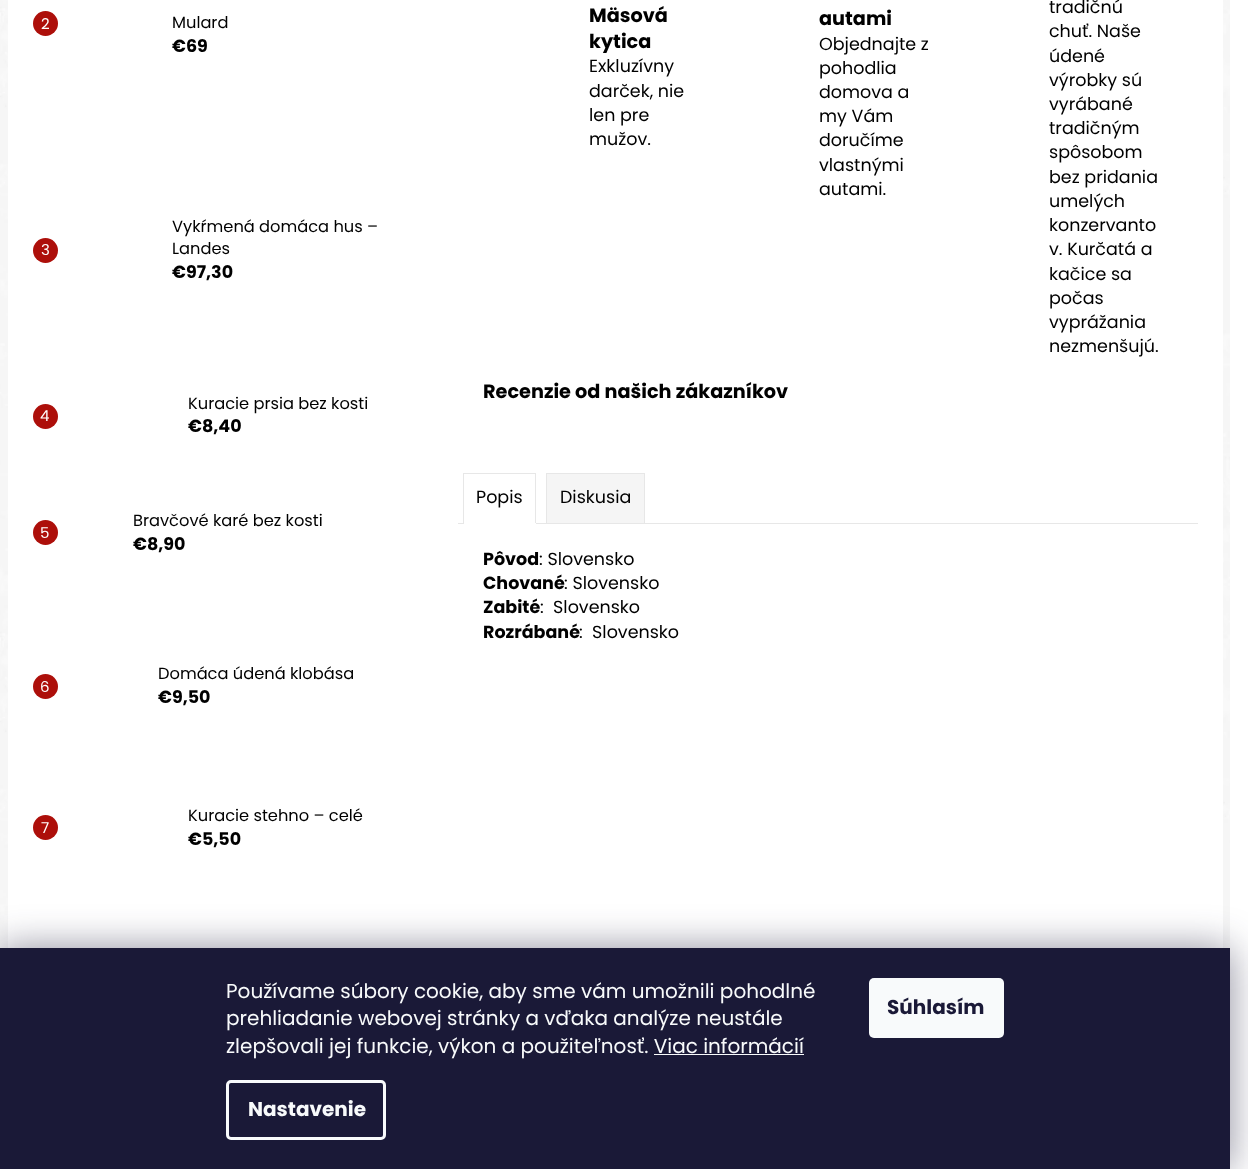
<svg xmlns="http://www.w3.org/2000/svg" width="1248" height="1169">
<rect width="100%" height="100%" fill="#fff"/>
<image x="0" y="0" width="1230" height="948" href="media/1.png"/>
<rect x="8" width="1215" height="948" fill="#fff"/>
<circle cx="45.5" cy="23.5" r="12.5" fill="#ad0f0a"/>
<text x="41" y="29" style="font-family:Poppins;font-size:15px;fill:#fff">2</text>
<text x="172" y="28" style="font-family:Poppins;font-size:16.25px;fill:#000">Mulard</text>
<text x="172" y="52" style="font-family:Poppins;font-size:17.5px;font-weight:bold;fill:#000">€69</text>
<circle cx="45.5" cy="250.5" r="12.5" fill="#ad0f0a"/>
<text x="41" y="255" style="font-family:Poppins;font-size:15px;fill:#fff">3</text>
<text x="172" y="232" style="font-family:Poppins;font-size:16.25px;fill:#000">Vykŕmená domáca hus –</text>
<text x="172" y="254" style="font-family:Poppins;font-size:16.25px;fill:#000">Landes</text>
<text x="172" y="278" style="font-family:Poppins;font-size:17.5px;font-weight:bold;fill:#000">€97,30</text>
<circle cx="45.5" cy="416.5" r="12.5" fill="#ad0f0a"/>
<text x="40" y="421" style="font-family:Poppins;font-size:15px;fill:#fff">4</text>
<text x="188" y="409" style="font-family:Poppins;font-size:16.25px;fill:#000">Kuracie prsia bez kosti</text>
<text x="188" y="432" style="font-family:Poppins;font-size:17.5px;font-weight:bold;fill:#000">€8,40</text>
<circle cx="45.5" cy="532.5" r="12.5" fill="#ad0f0a"/>
<text x="40" y="538" style="font-family:Poppins;font-size:15px;fill:#fff">5</text>
<text x="133" y="526" style="font-family:Poppins;font-size:16.25px;fill:#000">Bravčové karé bez kosti</text>
<text x="133" y="550" style="font-family:Poppins;font-size:17.5px;font-weight:bold;fill:#000">€8,90</text>
<circle cx="45.5" cy="686.5" r="12.5" fill="#ad0f0a"/>
<text x="40" y="692" style="font-family:Poppins;font-size:15px;fill:#fff">6</text>
<text x="158" y="679" style="font-family:Poppins;font-size:16.25px;fill:#000">Domáca údená klobása</text>
<text x="158" y="703" style="font-family:Poppins;font-size:17.5px;font-weight:bold;fill:#000">€9,50</text>
<circle cx="45.5" cy="827.5" r="12.5" fill="#ad0f0a"/>
<text x="41" y="833" style="font-family:Poppins;font-size:15px;fill:#fff">7</text>
<text x="188" y="821" style="font-family:Poppins;font-size:16.25px;fill:#000">Kuracie stehno – celé</text>
<text x="188" y="845" style="font-family:Poppins;font-size:17.5px;font-weight:bold;fill:#000">€5,50</text>
<text x="589" y="22" style="font-family:Poppins;font-size:19.25px;font-weight:bold;fill:#000">Mäsová</text>
<text x="589" y="48" style="font-family:Poppins;font-size:19.25px;font-weight:bold;fill:#000">kytica</text>
<text x="589" y="72" style="font-family:Poppins;font-size:17.5px;fill:#000">Exkluzívny</text>
<text x="589" y="97" style="font-family:Poppins;font-size:17.5px;fill:#000">darček, nie</text>
<text x="589" y="121" style="font-family:Poppins;font-size:17.5px;fill:#000">len pre</text>
<text x="589" y="145" style="font-family:Poppins;font-size:17.5px;fill:#000">mužov.</text>
<text x="819" y="25" style="font-family:Poppins;font-size:19.25px;font-weight:bold;fill:#000">autami</text>
<text x="819" y="50" style="font-family:Poppins;font-size:17.5px;fill:#000">Objednajte z</text>
<text x="819" y="74" style="font-family:Poppins;font-size:17.5px;fill:#000">pohodlia</text>
<text x="819" y="98" style="font-family:Poppins;font-size:17.5px;fill:#000">domova a</text>
<text x="819" y="122" style="font-family:Poppins;font-size:17.5px;fill:#000">my Vám</text>
<text x="819" y="146" style="font-family:Poppins;font-size:17.5px;fill:#000">doručíme</text>
<text x="819" y="171" style="font-family:Poppins;font-size:17.5px;fill:#000">vlastnými</text>
<text x="819" y="195" style="font-family:Poppins;font-size:17.5px;fill:#000">autami.</text>
<text x="1049" y="13" style="font-family:Poppins;font-size:17.5px;fill:#000">tradičnú</text>
<text x="1049" y="37" style="font-family:Poppins;font-size:17.5px;fill:#000">chuť. Naše</text>
<text x="1049" y="62" style="font-family:Poppins;font-size:17.5px;fill:#000">údené</text>
<text x="1049" y="86" style="font-family:Poppins;font-size:17.5px;fill:#000">výrobky sú</text>
<text x="1049" y="110" style="font-family:Poppins;font-size:17.5px;fill:#000">vyrábané</text>
<text x="1049" y="134" style="font-family:Poppins;font-size:17.5px;fill:#000">tradičným</text>
<text x="1049" y="158" style="font-family:Poppins;font-size:17.5px;fill:#000">spôsobom</text>
<text x="1049" y="183" style="font-family:Poppins;font-size:17.5px;fill:#000">bez pridania</text>
<text x="1049" y="207" style="font-family:Poppins;font-size:17.5px;fill:#000">umelých</text>
<text x="1049" y="231" style="font-family:Poppins;font-size:17.5px;fill:#000">konzervanto</text>
<text x="1049" y="255" style="font-family:Poppins;font-size:17.5px;fill:#000">v. Kurčatá a</text>
<text x="1049" y="280" style="font-family:Poppins;font-size:17.5px;fill:#000">kačice sa</text>
<text x="1049" y="304" style="font-family:Poppins;font-size:17.5px;fill:#000">počas</text>
<text x="1049" y="328" style="font-family:Poppins;font-size:17.5px;fill:#000">vyprážania</text>
<text x="1049" y="352" style="font-family:Poppins;font-size:17.5px;fill:#000">nezmenšujú.</text>
<text x="483" y="398" style="font-family:Poppins;font-size:19.25px;font-weight:bold;fill:#000">Recenzie od našich zákazníkov</text>
<rect x="458" y="523" width="740" height="1" fill="#e7e7e7"/>
<rect x="463" y="473" width="73" height="1" fill="#e7e7e7"/>
<rect x="535" y="473" width="1" height="51" fill="#e7e7e7"/>
<rect x="463" y="523" width="73" height="1" fill="#fff"/>
<rect x="463" y="473" width="1" height="51" fill="#e7e7e7"/>
<text x="476" y="503" style="font-family:Poppins;font-size:17.5px;fill:#000">Popis</text>
<rect x="546.5" y="473.5" width="98" height="50" fill="#f5f5f5" stroke="#e7e7e7"/>
<text x="560" y="503" style="font-family:Poppins;font-size:17.5px;fill:#000">Diskusia</text>
<text x="483" y="565" style="font-family:Poppins;font-size:17.5px;font-weight:bold;fill:#000">Pôvod</text>
<text x="539" y="565" style="font-family:Poppins;font-size:17.5px;fill:#000">: Slovensko</text>
<text x="483" y="589" style="font-family:Poppins;font-size:17.5px;font-weight:bold;fill:#000">Chované</text>
<text x="564" y="589" style="font-family:Poppins;font-size:17.5px;fill:#000">: Slovensko</text>
<text x="483" y="613" style="font-family:Poppins;font-size:17.5px;font-weight:bold;fill:#000">Zabité</text>
<text x="540" y="613" style="font-family:Poppins;font-size:17.5px;fill:#000" xml:space="preserve">:  Slovensko</text>
<text x="483" y="638" style="font-family:Poppins;font-size:17.5px;font-weight:bold;fill:#000">Rozrábané</text>
<text x="579" y="638" style="font-family:Poppins;font-size:17.5px;fill:#000" xml:space="preserve">:  Slovensko</text>
<rect y="948" width="1230" height="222" fill="#1b193980" filter="blur(19px)"/>
<rect y="948" width="1230" height="221" fill="#1a1937"/>
<text x="226" y="998" style="font-family:Poppins;font-size:20px;fill:#f8fafb">Používame súbory cookie, aby sme vám umožnili pohodlné</text>
<text x="226" y="1025" style="font-family:Poppins;font-size:20px;fill:#f8fafb">prehliadanie webovej stránky a vďaka analýze neustále</text>
<text x="226" y="1053" style="font-family:Poppins;font-size:20px;fill:#f8fafb">zlepšovali jej funkcie, výkon a použiteľnosť. Viac informácií</text>
<rect x="654" y="1054" width="150" height="1" fill="#f8fafb"/>
<rect x="227.5" y="1081.5" width="157" height="57" rx="3.5" fill="none" stroke="#f8fafb" stroke-width="3"/>
<text x="248" y="1116" style="font-family:Poppins;font-size:20px;font-weight:bold;fill:#f8fafb">Nastavenie</text>
<rect x="869" y="978" width="135" height="60" rx="5" fill="#f8fafb"/>
<text x="887" y="1014" style="font-family:Poppins;font-size:20px;font-weight:bold;fill:#1a1937">Súhlasím</text>
</svg>
